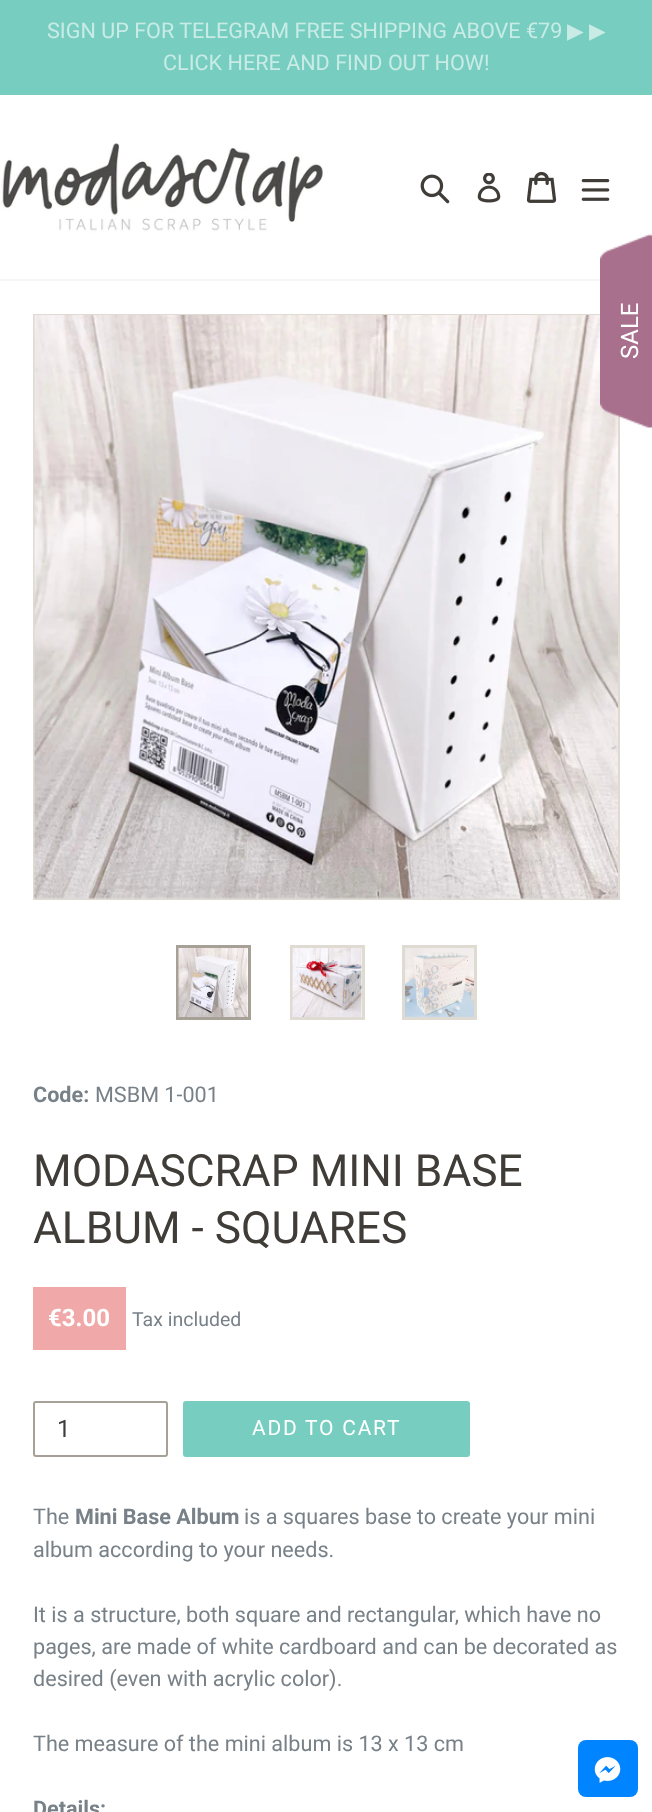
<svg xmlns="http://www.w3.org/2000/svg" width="652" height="1812">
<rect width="100%" height="100%" fill="#fff"/>
<rect width="652" height="95" fill="#77cec0"/>
<text x="47" y="38" style="font-family:Roboto;font-size:21.6px;fill:#c9ebe6">SIGN UP FOR TELEGRAM FREE SHIPPING ABOVE €79</text>
<text x="567" y="38" style="font-family:DejaVu Sans;font-size:21.6px;fill:#c9ebe6">▶︎</text>
<text x="589" y="38" style="font-family:DejaVu Sans;font-size:21.6px;fill:#c9ebe6">▶︎</text>
<text x="163" y="70" style="font-family:Roboto;font-size:21.6px;fill:#c9ebe6">CLICK HERE AND FIND OUT HOW!</text>
<rect y="279" width="600" height="2" fill="#f8f6f4"/>
<image x="0" y="143" width="323" height="90" href="media/1.png"/>
<image x="420" y="174" width="30" height="30" href="media/2.png"/>
<image x="477" y="173" width="24" height="30" href="media/3.png"/>
<image x="527" y="171" width="30" height="32" href="media/4.png"/>
<image x="581" y="179" width="29" height="22" href="media/5.png"/>
<rect x="34" y="315" width="585" height="584" fill="none" stroke="#dfdbd2" stroke-width="2"/>
<image x="34" y="315" width="584" height="584" href="media/7.png"/>
<image x="600" y="233" width="52" height="195" href="media/6.png"/>
<text x="638" y="359" transform="rotate(-90 638 359)" style="font-family:Roboto;font-size:24px;fill:#fff">SALE</text>
<rect x="177.5" y="946.5" width="72" height="72" fill="none" stroke="#a6a096" stroke-width="3"/>
<image x="178" y="948" width="70" height="69" href="media/8.png"/>
<rect x="291.5" y="946.5" width="72" height="72" fill="none" stroke="#dfdbd2" stroke-width="3"/>
<image x="292" y="948" width="70" height="69" href="media/9.png"/>
<rect x="403.5" y="946.5" width="72" height="72" fill="none" stroke="#dfdbd2" stroke-width="3"/>
<image x="405" y="948" width="69" height="69" href="media/10.png"/>
<text x="33" y="1102" style="font-family:Roboto;font-size:21.6px;font-weight:bold;fill:#788188">Code:</text>
<text x="95" y="1102" style="font-family:Roboto;font-size:21.6px;fill:#788188">MSBM 1-001</text>
<text x="33" y="1186" style="font-family:Roboto;font-size:44.25px;fill:#403d39">MODASCRAP MINI BASE</text>
<text x="33" y="1243" style="font-family:Roboto;font-size:44.25px;fill:#403d39">ALBUM - SQUARES</text>
<rect x="33" y="1287" width="93" height="63" fill="#f0a8a8"/>
<text x="48" y="1326" style="font-family:Roboto;font-size:24px;font-weight:bold;fill:#fff">€3.00</text>
<text x="132" y="1326" style="font-family:Roboto;font-size:19.5px;fill:#788188">Tax included</text>
<rect x="34" y="1402" width="133" height="54" rx="2" fill="none" stroke="#a6a096" stroke-width="2"/>
<text x="57" y="1437" style="font-family:Roboto;font-size:24px;fill:#403d39">1</text>
<rect x="183" y="1401" width="287" height="56" rx="3" fill="#77cec0"/>
<text x="252" y="1435" style="font-family:Roboto;font-size:21px;letter-spacing:1.75px;fill:#fff">ADD TO CART</text>
<text x="33" y="1524" style="font-family:Roboto;font-size:21.6px;fill:#788188">The</text>
<text x="75" y="1524" style="font-family:Roboto;font-size:21.6px;font-weight:bold;fill:#788188">Mini Base Album</text>
<text x="244" y="1524" style="font-family:Roboto;font-size:21.6px;fill:#788188">is a squares base to create your mini</text>
<text x="33" y="1557" style="font-family:Roboto;font-size:21.6px;fill:#788188">album according to your needs.</text>
<text x="33" y="1622" style="font-family:Roboto;font-size:21.6px;fill:#788188">It is a structure, both square and rectangular, which have no</text>
<text x="33" y="1654" style="font-family:Roboto;font-size:21.6px;fill:#788188">pages, are made of white cardboard and can be decorated as</text>
<text x="33" y="1686" style="font-family:Roboto;font-size:21.6px;fill:#788188">desired (even with acrylic color).</text>
<text x="33" y="1751" style="font-family:Roboto;font-size:21.6px;fill:#788188">The measure of the mini album is 13 x 13 cm</text>
<text x="33" y="1816" style="font-family:Roboto;font-size:21.6px;font-weight:bold;fill:#788188">Details:</text>
<rect x="578" y="1740" width="60" height="57" rx="8" fill="#0084ff"/>
<image x="594" y="1757" width="27" height="26" href="media/11.png"/>
</svg>
